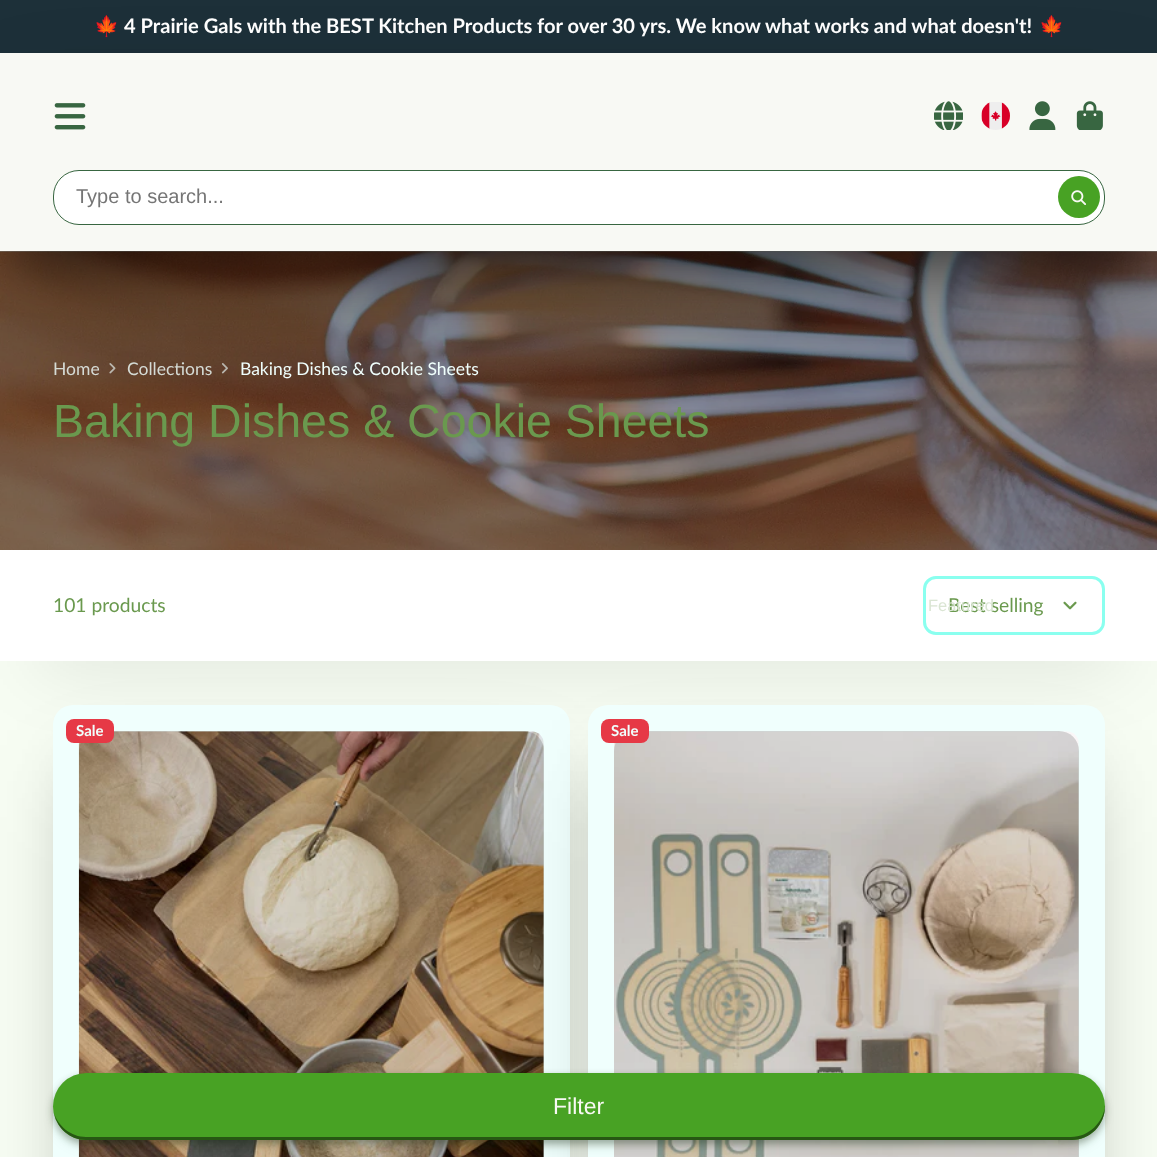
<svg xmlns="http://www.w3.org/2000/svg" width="1157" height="1157">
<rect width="100%" height="100%" fill="#f7fdf3"/>
<rect width="1157" height="53" fill="#1d3039"/>
<text x="94" y="33" style="font-family:Noto Color Emoji;font-size:20.1px;font-weight:bold;fill:#fff">🍁</text>
<text x="124" y="33" style="font-family:Lato;font-size:20.1px;font-weight:bold;fill:#fff">4 Prairie Gals with the BEST Kitchen Products for over 30 yrs. We know what works and what doesn't!</text>
<text x="1039" y="33" style="font-family:Noto Color Emoji;font-size:20.1px;font-weight:bold;fill:#fff">🍁</text>
<rect x="38" y="625" width="1082" height="36" fill="#00000026" filter="blur(37.5px)"/>
<image x="0" y="251" width="1157" height="299" href="media/7.png"/>
<rect y="251" width="1157" height="299" fill="#00000066"/>
<rect x="18" y="103" width="1122" height="163" fill="#00000066" filter="blur(24px)"/>
<image x="109" y="363" width="7" height="11" href="media/8.png"/>
<image x="221" y="363" width="7" height="11" href="media/9.png"/>
<rect x="18" y="125" width="1122" height="164" fill="#0000004d" filter="blur(54.5px)"/>
<rect y="53" width="1157" height="198" fill="#f8f9f4"/>
<image x="54" y="103" width="32" height="27" href="media/1.png"/>
<image x="934" y="101" width="29" height="29" href="media/2.png"/>
<image x="981" y="102" width="29" height="28" href="media/3.png"/>
<image x="1029" y="101" width="27" height="29" href="media/4.png"/>
<image x="1076" y="101" width="27" height="29" href="media/5.png"/>
<rect x="53.5" y="170.5" width="1051" height="54" rx="25.5" fill="#fff" stroke="#386641"/>
<text x="76" y="203" style="font-family:Liberation Sans;font-size:20px;fill:#757575">Type to search...</text>
<circle cx="1079" cy="197" r="21" fill="#48a224"/>
<image x="1071" y="190" width="15" height="15" href="media/6.png"/>
<text x="53" y="375" style="font-family:Lato;font-size:17.5px;fill:#d5dbd5">Home</text>
<text x="127" y="375" style="font-family:Lato;font-size:17.5px;fill:#d5dbd5">Collections</text>
<text x="240" y="375" style="font-family:Lato;font-size:17.5px;fill:#f0fffd">Baking Dishes &amp; Cookie Sheets</text>
<text x="53" y="437" style="font-family:Liberation Sans;font-size:46.5px;fill:#6a994e">Baking Dishes &amp; Cookie Sheets</text>
<rect y="550" width="1157" height="111" fill="#fff"/>
<text x="53" y="612" style="font-family:Lato;font-size:19.25px;fill:#6a994e">101 products</text>
<rect x="924.5" y="577.5" width="179" height="56" rx="11.5" fill="none" stroke="#8affef" stroke-width="3"/>
<text x="948" y="612" style="font-family:Lato;font-size:19.25px;fill:#6a994e">Best selling</text>
<image x="1063" y="601" width="14" height="9" href="media/10.png"/>
<text x="928" y="611" style="font-family:Liberation Sans;font-size:16.5px;fill:#dae5d3">Featured</text>
<rect x="85" y="771" width="453" height="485" fill="#0000004d" filter="blur(33px)"/>
<rect x="75" y="781" width="474" height="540" fill="#0000001a" filter="blur(54.5px)"/>
<rect x="53" y="705" width="517" height="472" rx="20" fill="#f0fffd"/>
<image x="78" y="731" width="466" height="426" href="media/11.png"/>
<rect x="79" y="731" width="465" height="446" rx="20" fill="#00000026"/>
<rect x="66" y="719" width="48" height="24" rx="8" fill="#e63946"/>
<text x="76" y="736" style="font-family:Lato;font-size:15px;font-weight:bold;fill:#f0fffd">Sale</text>
<rect x="620" y="771" width="453" height="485" fill="#0000004d" filter="blur(33px)"/>
<rect x="610" y="781" width="474" height="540" fill="#0000001a" filter="blur(54.5px)"/>
<rect x="588" y="705" width="517" height="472" rx="20" fill="#f0fffd"/>
<image x="614" y="731" width="465" height="426" href="media/12.png"/>
<rect x="614" y="731" width="465" height="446" rx="20" fill="#00000026"/>
<rect x="601" y="719" width="48" height="24" rx="8" fill="#e63946"/>
<text x="611" y="736" style="font-family:Lato;font-size:15px;font-weight:bold;fill:#f0fffd">Sale</text>
<rect x="56" y="1083" width="1045" height="61" rx="30.5" fill="#10250826" filter="blur(7px)"/>
<rect x="53" y="1076" width="1052" height="68" rx="34" fill="#1025084d" filter="blur(3.5px)"/>
<rect x="53" y="1073" width="1052" height="67" rx="33.5" fill="#48a224"/>
<path d="M54 1113c3 15 16 27 32 27h986c18 0 33-15 33-34v-1c-1 17-16 32-34 32h-985c-15 0-28-11-32-24z" fill="#275713"/>
<text x="553" y="1114" style="font-family:Liberation Sans;font-size:23px;fill:#f8f9f4">Filter</text>
</svg>
